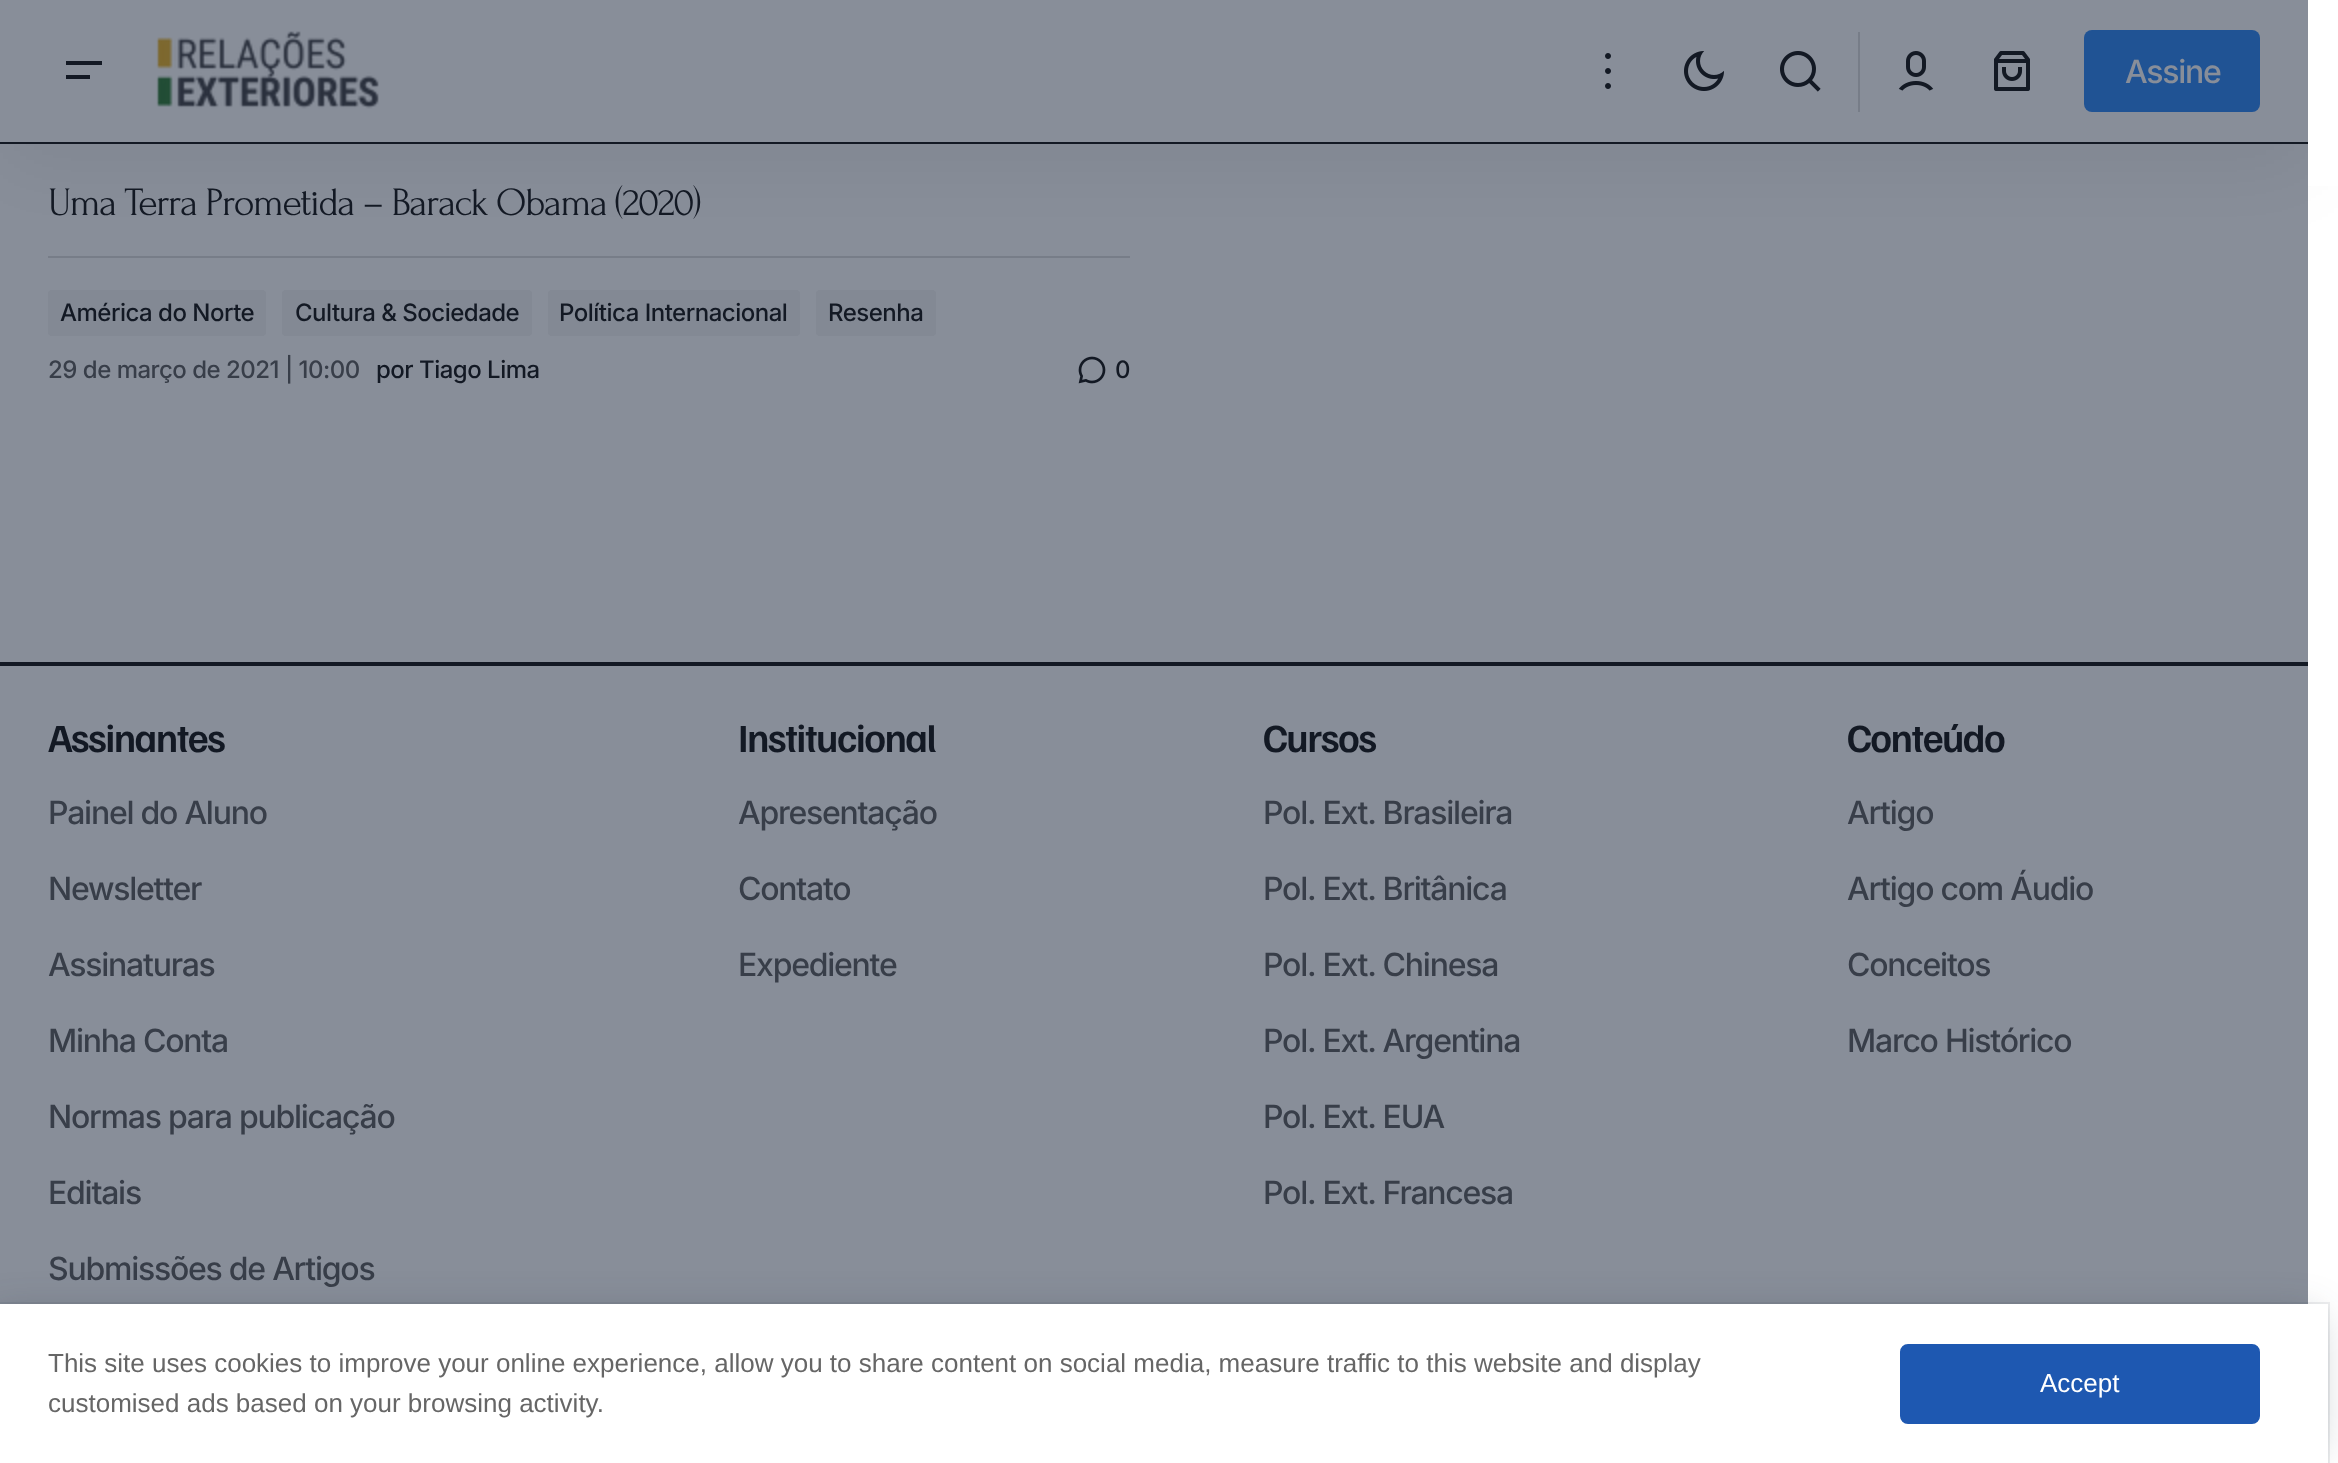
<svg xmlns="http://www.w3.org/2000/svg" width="2338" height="1463">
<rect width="100%" height="100%" fill="#fff"/>
<rect x="48" y="256" width="1082" height="2" fill="#d9d9d9"/>
<rect y="20" width="2308" height="144" fill="#00000012" filter="blur(40px)"/>
<rect width="2308" height="142" fill="#fff"/>
<path d="M66 61h36v4h-36zm0 14h24v4h-24z" fill="#000"/>
<image x="156" y="31" width="223" height="78" href="media/1.png"/>
<image x="1605" y="53" width="6" height="36" href="media/2.png"/>
<image x="1684" y="51" width="40" height="40" href="media/3.png"/>
<image x="1780" y="51" width="41" height="41" href="media/4.png"/>
<rect x="1858" y="32" width="2" height="80" fill="#d9d9d9"/>
<image x="1898" y="51" width="36" height="40" href="media/5.png"/>
<image x="1994" y="51" width="36" height="40" href="media/6.png"/>
<rect x="2084" y="30" width="176" height="82" rx="8" fill="#1d7ef4"/>
<text x="2125" y="83" style="font-family:Inter;font-size:32px;font-weight:500;letter-spacing:-1.25px;fill:#fff">Assine</text>
<rect y="142" width="2308" height="2" fill="#000"/>
<text x="48" y="215" style="font-family:Forum;font-size:40px;letter-spacing:-1.6px;fill:#000">Uma Terra Prometida – Barack Obama (2020)</text>
<rect x="48" y="290" width="218" height="46" rx="4" fill="#f3f3f3"/>
<text x="60" y="321" style="font-family:Inter;font-size:24px;font-weight:500;letter-spacing:-0.5px;fill:#000">América do Norte</text>
<rect x="282" y="290" width="250" height="46" rx="4" fill="#f3f3f3"/>
<text x="295" y="321" style="font-family:Inter;font-size:24px;font-weight:500;letter-spacing:-0.5px;fill:#000">Cultura &amp; Sociedade</text>
<rect x="548" y="290" width="252" height="46" rx="4" fill="#f3f3f3"/>
<text x="559" y="321" style="font-family:Inter;font-size:24px;font-weight:500;letter-spacing:-0.5px;fill:#000">Política Internacional</text>
<rect x="816" y="290" width="120" height="46" rx="4" fill="#f3f3f3"/>
<text x="828" y="321" style="font-family:Inter;font-size:24px;font-weight:500;letter-spacing:-0.5px;fill:#000">Resenha</text>
<text x="48" y="378" style="font-family:Inter;font-size:24px;font-weight:500;letter-spacing:-0.5px;fill:#525252">29 de março de 2021 | 10:00</text>
<text x="376" y="378" style="font-family:Inter;font-size:24px;font-weight:500;letter-spacing:-0.5px;fill:#000">por Tiago Lima</text>
<image x="1078" y="356" width="28" height="28" href="media/7.png"/>
<text x="1115" y="378" style="font-family:Inter;font-size:24px;font-weight:500;letter-spacing:-0.5px;fill:#000">0</text>
<rect y="662" width="2308" height="4" fill="#000"/>
<text x="48" y="752" style="font-family:Familjen Grotesk;font-size:40px;font-weight:600;letter-spacing:-1.6px;fill:#000">Assinantes</text>
<text x="48" y="824" style="font-family:Inter;font-size:32px;font-weight:500;letter-spacing:-1.25px;fill:#525252">Painel do Aluno</text>
<text x="48" y="900" style="font-family:Inter;font-size:32px;font-weight:500;letter-spacing:-1.25px;fill:#525252">Newsletter</text>
<text x="48" y="976" style="font-family:Inter;font-size:32px;font-weight:500;letter-spacing:-1.25px;fill:#525252">Assinaturas</text>
<text x="48" y="1052" style="font-family:Inter;font-size:32px;font-weight:500;letter-spacing:-1.25px;fill:#525252">Minha Conta</text>
<text x="48" y="1128" style="font-family:Inter;font-size:32px;font-weight:500;letter-spacing:-1.25px;fill:#525252">Normas para publicação</text>
<text x="48" y="1204" style="font-family:Inter;font-size:32px;font-weight:500;letter-spacing:-1.25px;fill:#525252">Editais</text>
<text x="48" y="1280" style="font-family:Inter;font-size:32px;font-weight:500;letter-spacing:-1.25px;fill:#525252">Submissões de Artigos</text>
<text x="738" y="752" style="font-family:Familjen Grotesk;font-size:40px;font-weight:600;letter-spacing:-1.6px;fill:#000">Institucional</text>
<text x="738" y="824" style="font-family:Inter;font-size:32px;font-weight:500;letter-spacing:-1.25px;fill:#525252">Apresentação</text>
<text x="738" y="900" style="font-family:Inter;font-size:32px;font-weight:500;letter-spacing:-1.25px;fill:#525252">Contato</text>
<text x="738" y="976" style="font-family:Inter;font-size:32px;font-weight:500;letter-spacing:-1.25px;fill:#525252">Expediente</text>
<text x="1263" y="752" style="font-family:Familjen Grotesk;font-size:40px;font-weight:600;letter-spacing:-1.6px;fill:#000">Cursos</text>
<text x="1263" y="824" style="font-family:Inter;font-size:32px;font-weight:500;letter-spacing:-1.25px;fill:#525252">Pol. Ext. Brasileira</text>
<text x="1263" y="900" style="font-family:Inter;font-size:32px;font-weight:500;letter-spacing:-1.25px;fill:#525252">Pol. Ext. Britânica</text>
<text x="1263" y="976" style="font-family:Inter;font-size:32px;font-weight:500;letter-spacing:-1.25px;fill:#525252">Pol. Ext. Chinesa</text>
<text x="1263" y="1052" style="font-family:Inter;font-size:32px;font-weight:500;letter-spacing:-1.25px;fill:#525252">Pol. Ext. Argentina</text>
<text x="1263" y="1128" style="font-family:Inter;font-size:32px;font-weight:500;letter-spacing:-1.25px;fill:#525252">Pol. Ext. EUA</text>
<text x="1263" y="1204" style="font-family:Inter;font-size:32px;font-weight:500;letter-spacing:-1.25px;fill:#525252">Pol. Ext. Francesa</text>
<text x="1847" y="752" style="font-family:Familjen Grotesk;font-size:40px;font-weight:600;letter-spacing:-1.6px;fill:#000">Conteúdo</text>
<text x="1847" y="824" style="font-family:Inter;font-size:32px;font-weight:500;letter-spacing:-1.25px;fill:#525252">Artigo</text>
<text x="1847" y="900" style="font-family:Inter;font-size:32px;font-weight:500;letter-spacing:-1.25px;fill:#525252">Artigo com Áudio</text>
<text x="1847" y="976" style="font-family:Inter;font-size:32px;font-weight:500;letter-spacing:-1.25px;fill:#525252">Conceitos</text>
<text x="1847" y="1052" style="font-family:Inter;font-size:32px;font-weight:500;letter-spacing:-1.25px;fill:#525252">Marco Histórico</text>
<rect width="2308" height="1304" fill="#242f428a"/>
<rect x="2308" width="30" height="186" fill="#fff"/>
<rect x="-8" y="1316" width="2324" height="136" fill="#242f424f" filter="blur(20px)"/>
<rect x="-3" y="1308" width="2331" height="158" fill="#242f4214" filter="blur(1px)"/>
<rect x="-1" y="1303" width="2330" height="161" fill="none" stroke="#242f4214" stroke-width="2"/>
<rect y="1304" width="2328" height="159" fill="#fff"/>
<text x="48" y="1372" style="font-family:Liberation Sans;font-size:26px;fill:#666">This site uses cookies to improve your online experience, allow you to share content on social media, measure traffic to this website and display</text>
<text x="48" y="1412" style="font-family:Liberation Sans;font-size:26px;fill:#666">customised ads based on your browsing activity.</text>
<rect x="1901" y="1345" width="358" height="78" rx="7" fill="#1e58b1" stroke="#1e58b1" stroke-width="2"/>
<text x="2040" y="1392" style="font-family:Liberation Sans;font-size:26px;fill:#fff">Accept</text>
</svg>
